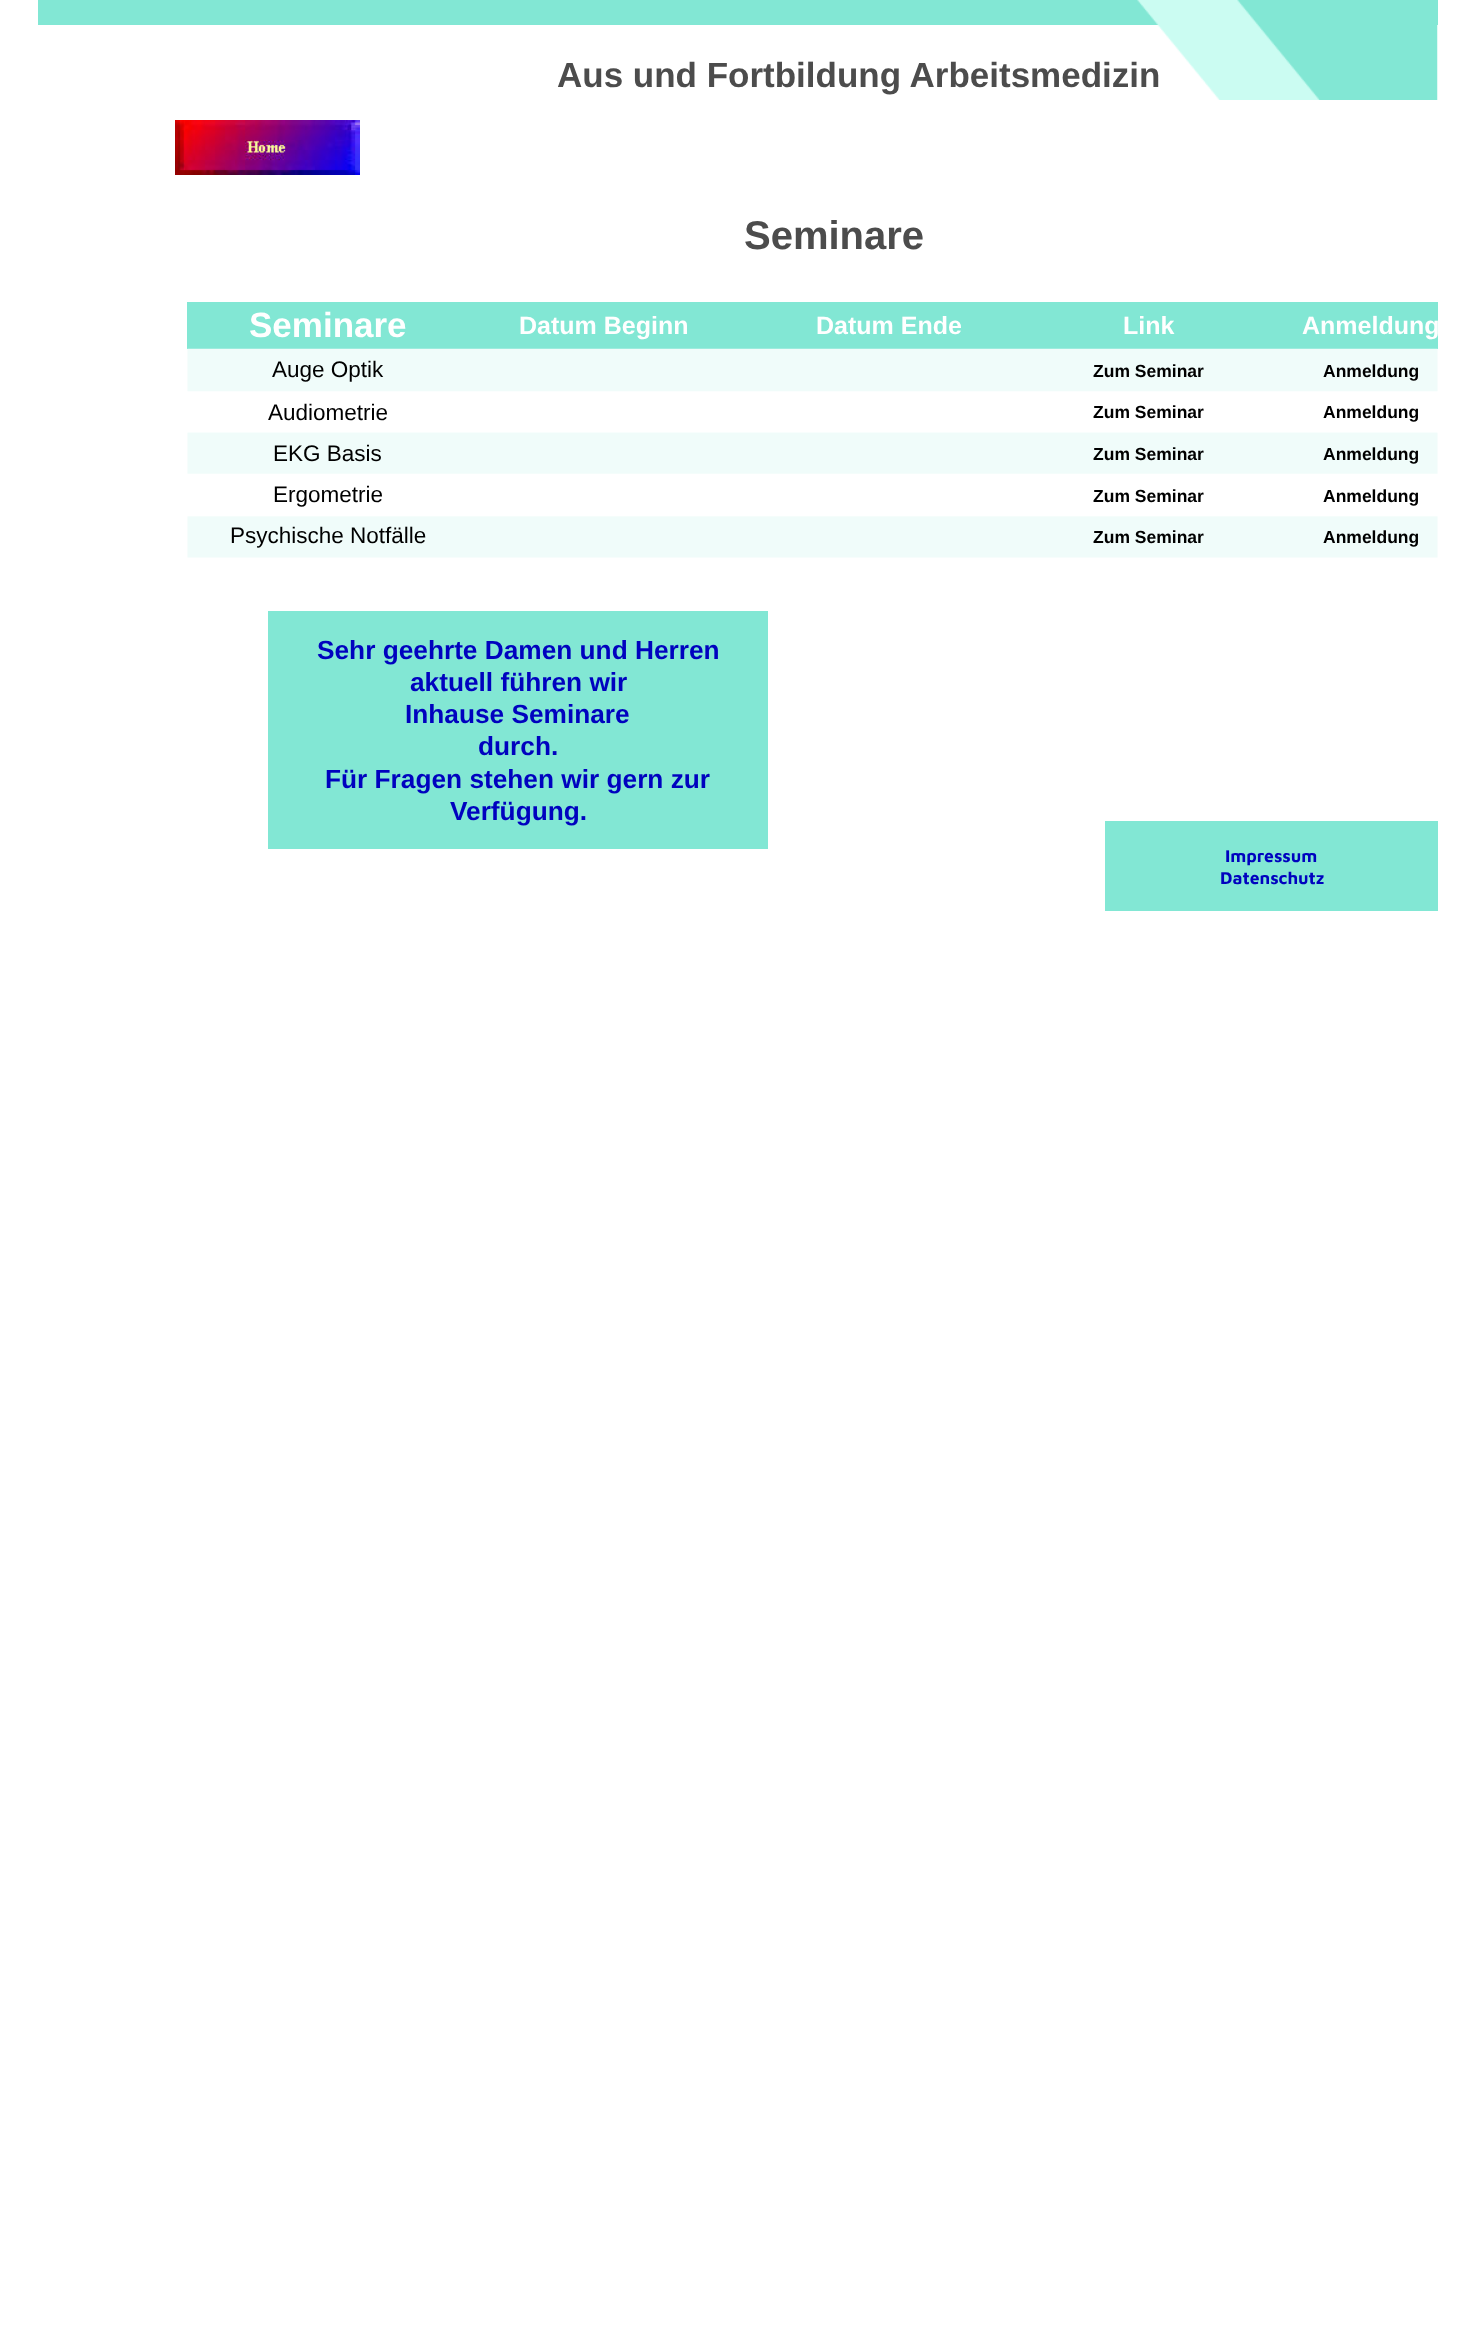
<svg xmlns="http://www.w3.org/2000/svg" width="1474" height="2333">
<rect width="100%" height="100%" fill="#fff"/>
<rect x="38" width="1400" height="25" fill="#82e7d4"/>
<image x="1137" y="0" width="301" height="100" href="media/1.png"/>
<text x="557" y="87" style="font-family:Liberation Sans;font-size:35px;font-weight:bold;fill:#4c4c4c">Aus und Fortbildung Arbeitsmedizin</text>
<image x="175" y="120" width="185" height="55" href="media/2.png"/>
<text x="744" y="249" style="font-family:Liberation Sans;font-size:40px;font-weight:bold;fill:#4c4c4c">Seminare</text>
<rect x="187" y="302" width="1251" height="47" fill="#82e7d4"/>
<text x="249" y="337" style="font-family:Liberation Sans;font-size:35px;font-weight:bold;fill:#fff">Seminare</text>
<text x="519" y="334" style="font-family:Liberation Sans;font-size:25px;font-weight:bold;fill:#fff">Datum Beginn</text>
<text x="816" y="334" style="font-family:Liberation Sans;font-size:25px;font-weight:bold;fill:#fff">Datum Ende</text>
<text x="1123" y="334" style="font-family:Liberation Sans;font-size:25px;font-weight:bold;fill:#fff">Link</text>
<text x="1302" y="334" style="font-family:Liberation Sans;font-size:25px;font-weight:bold;fill:#fff">Anmeldung</text>
<image x="187" y="348" width="1251" height="210" href="media/3.png"/>
<text x="272" y="377" style="font-family:Liberation Sans;font-size:22.5px;fill:#000">Auge Optik</text>
<text x="1093" y="377" style="font-family:Liberation Sans;font-size:17.5px;font-weight:bold;fill:#000">Zum Seminar</text>
<text x="1323" y="377" style="font-family:Liberation Sans;font-size:17.5px;font-weight:bold;fill:#000">Anmeldung</text>
<text x="268" y="420" style="font-family:Liberation Sans;font-size:22.5px;fill:#000">Audiometrie</text>
<text x="1093" y="418" style="font-family:Liberation Sans;font-size:17.5px;font-weight:bold;fill:#000">Zum Seminar</text>
<text x="1323" y="418" style="font-family:Liberation Sans;font-size:17.5px;font-weight:bold;fill:#000">Anmeldung</text>
<text x="273" y="461" style="font-family:Liberation Sans;font-size:22.5px;fill:#000">EKG Basis</text>
<text x="1093" y="460" style="font-family:Liberation Sans;font-size:17.5px;font-weight:bold;fill:#000">Zum Seminar</text>
<text x="1323" y="460" style="font-family:Liberation Sans;font-size:17.5px;font-weight:bold;fill:#000">Anmeldung</text>
<text x="273" y="502" style="font-family:Liberation Sans;font-size:22.5px;fill:#000">Ergometrie</text>
<text x="1093" y="502" style="font-family:Liberation Sans;font-size:17.5px;font-weight:bold;fill:#000">Zum Seminar</text>
<text x="1323" y="502" style="font-family:Liberation Sans;font-size:17.5px;font-weight:bold;fill:#000">Anmeldung</text>
<text x="230" y="543" style="font-family:Liberation Sans;font-size:22.5px;fill:#000">Psychische Notfälle</text>
<text x="1093" y="543" style="font-family:Liberation Sans;font-size:17.5px;font-weight:bold;fill:#000">Zum Seminar</text>
<text x="1323" y="543" style="font-family:Liberation Sans;font-size:17.5px;font-weight:bold;fill:#000">Anmeldung</text>
<rect x="268" y="611" width="500" height="238" fill="#82e7d4"/>
<text x="317" y="659" style="font-family:Liberation Sans;font-size:26.25px;font-weight:bold;fill:#0002bf">Sehr geehrte Damen und Herren</text>
<text x="410" y="691" style="font-family:Liberation Sans;font-size:26.25px;font-weight:bold;fill:#0002bf">aktuell führen wir</text>
<text x="405" y="723" style="font-family:Liberation Sans;font-size:26.25px;font-weight:bold;fill:#0002bf">Inhause Seminare</text>
<text x="478" y="755" style="font-family:Liberation Sans;font-size:26.25px;font-weight:bold;fill:#0002bf">durch.</text>
<text x="325" y="788" style="font-family:Liberation Sans;font-size:26.25px;font-weight:bold;fill:#0002bf">Für Fragen stehen wir gern zur</text>
<text x="450" y="820" style="font-family:Liberation Sans;font-size:26.25px;font-weight:bold;fill:#0002bf">Verfügung.</text>
<rect x="1105" y="821" width="333" height="90" fill="#82e7d4"/>
<text x="1225" y="862" style="font-family:Maven Pro;font-size:17.5px;font-weight:bold;fill:#0002bf">Impressum</text>
<text x="1220" y="884" style="font-family:Maven Pro;font-size:17.5px;font-weight:bold;fill:#0002bf">Datenschutz</text>
</svg>
